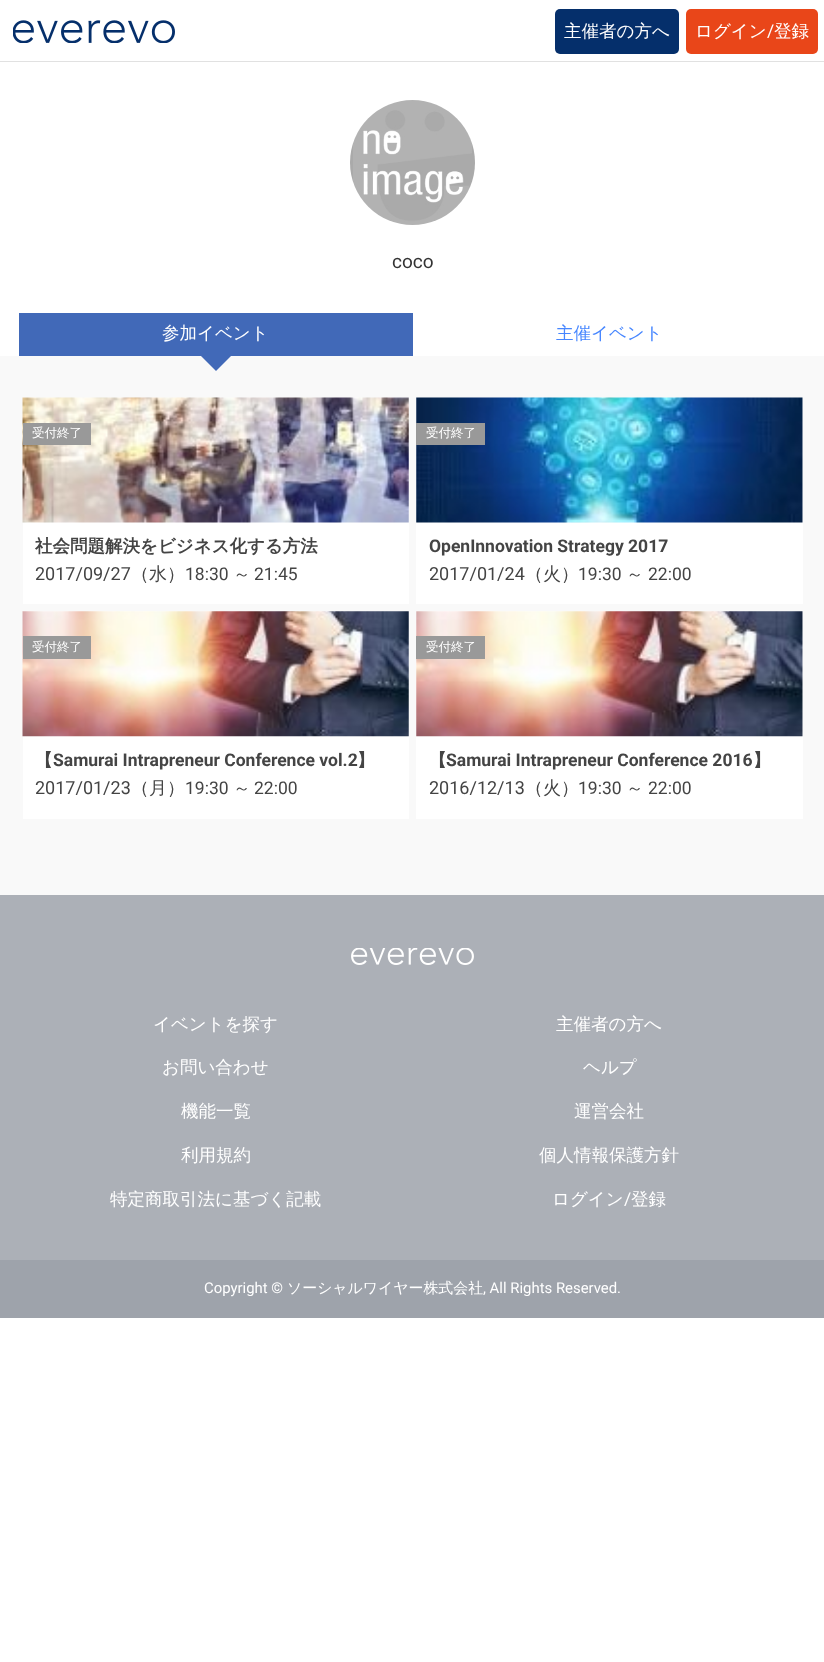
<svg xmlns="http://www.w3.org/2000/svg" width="824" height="1662">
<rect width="100%" height="100%" fill="#fff"/>
<rect y="61" width="824" height="1" fill="#e1e1e1"/>
<image x="13" y="20" width="162" height="23" href="media/1.png"/>
<rect x="555" y="9" width="124" height="45" rx="5" fill="#052f6b"/>
<text x="564" y="37" style="font-family:WenQuanYi Zen Hei;font-size:17.5px;font-weight:500;fill:#fff">主催者の方へ</text>
<rect x="686" y="9" width="132" height="45" rx="5" fill="#e94619"/>
<text x="695" y="37" style="font-family:WenQuanYi Zen Hei;font-size:17.5px;font-weight:500;fill:#fff">ログイン</text>
<text x="767" y="37" style="font-family:Roboto;font-size:17.5px;fill:#fff">/</text>
<text x="774" y="37" style="font-family:WenQuanYi Zen Hei;font-size:17.5px;font-weight:500;fill:#fff">登録</text>
<image x="350" y="100" width="125" height="125" href="media/2.png"/>
<text x="392" y="268" style="font-family:Roboto;font-size:19px;fill:#333">coco</text>
<rect y="356" width="824" height="539" fill="#f9f9f9"/>
<rect x="19" y="313" width="394" height="43" fill="#4169b8"/>
<text x="162" y="339" style="font-family:WenQuanYi Zen Hei;font-size:17.5px;font-weight:500;fill:#fff">参加イベント</text>
<path d="M201 356h30l-15 15z" fill="#4169b8"/>
<text x="556" y="339" style="font-family:WenQuanYi Zen Hei;font-size:17.5px;font-weight:500;fill:#4686ff">主催イベント</text>
<rect x="23" y="398" width="386" height="206" fill="#fff"/>
<image x="22" y="397" width="387" height="126" href="media/3.png"/>
<rect x="23" y="423" width="68" height="22" fill="#999"/>
<text x="32" y="437" style="font-family:WenQuanYi Zen Hei;font-size:12.5px;font-weight:500;fill:#fff">受付終了</text>
<text x="35" y="552" style="font-family:WenQuanYi Zen Hei;font-size:17.5px;font-weight:bold;fill:#444">社会問題解決をビジネス化する方法</text>
<text x="35" y="580" style="font-family:Roboto;font-size:18px;fill:#444">2017/09/27</text>
<text x="131" y="580" style="font-family:WenQuanYi Zen Hei;font-size:18px;font-weight:500;fill:#444">（水）</text>
<text x="185" y="580" style="font-family:Roboto;font-size:17.5px;fill:#444">18:30</text>
<text x="233" y="580" style="font-family:WenQuanYi Zen Hei;font-size:17.5px;font-weight:500;fill:#444">～</text>
<text x="254" y="580" style="font-family:Roboto;font-size:17.5px;fill:#444">21:45</text>
<rect x="416" y="398" width="387" height="206" fill="#fff"/>
<image x="416" y="397" width="387" height="126" href="media/4.png"/>
<rect x="416" y="423" width="69" height="22" fill="#999"/>
<text x="426" y="437" style="font-family:WenQuanYi Zen Hei;font-size:12.5px;font-weight:500;fill:#fff">受付終了</text>
<text x="429" y="552" style="font-family:Roboto;font-size:17.5px;font-weight:bold;fill:#444">OpenInnovation Strategy 2017</text>
<text x="429" y="580" style="font-family:Roboto;font-size:18px;fill:#444">2017/01/24</text>
<text x="525" y="580" style="font-family:WenQuanYi Zen Hei;font-size:18px;font-weight:500;fill:#444">（火）</text>
<text x="578" y="580" style="font-family:Roboto;font-size:17.5px;fill:#444">19:30</text>
<text x="626" y="580" style="font-family:WenQuanYi Zen Hei;font-size:17.5px;font-weight:500;fill:#444">～</text>
<text x="648" y="580" style="font-family:Roboto;font-size:17.5px;fill:#444">22:00</text>
<rect x="23" y="611" width="386" height="208" fill="#fff"/>
<image x="22" y="611" width="387" height="126" href="media/5.png"/>
<rect x="23" y="636" width="68" height="23" fill="#999"/>
<text x="32" y="651" style="font-family:WenQuanYi Zen Hei;font-size:12.5px;font-weight:500;fill:#fff">受付終了</text>
<text x="35" y="766" style="font-family:WenQuanYi Zen Hei;font-size:17.5px;font-weight:bold;fill:#444">【</text>
<text x="53" y="766" style="font-family:Roboto;font-size:17.5px;font-weight:bold;fill:#444">Samurai Intrapreneur Conference vol.2</text>
<text x="357" y="766" style="font-family:WenQuanYi Zen Hei;font-size:17.5px;font-weight:bold;fill:#444">】</text>
<text x="35" y="794" style="font-family:Roboto;font-size:18px;fill:#444">2017/01/23</text>
<text x="131" y="794" style="font-family:WenQuanYi Zen Hei;font-size:18px;font-weight:500;fill:#444">（月）</text>
<text x="185" y="794" style="font-family:Roboto;font-size:17.5px;fill:#444">19:30</text>
<text x="233" y="794" style="font-family:WenQuanYi Zen Hei;font-size:17.5px;font-weight:500;fill:#444">～</text>
<text x="254" y="794" style="font-family:Roboto;font-size:17.5px;fill:#444">22:00</text>
<rect x="416" y="611" width="387" height="208" fill="#fff"/>
<image x="416" y="611" width="387" height="126" href="media/6.png"/>
<rect x="416" y="636" width="69" height="23" fill="#999"/>
<text x="426" y="651" style="font-family:WenQuanYi Zen Hei;font-size:12.5px;font-weight:500;fill:#fff">受付終了</text>
<text x="429" y="766" style="font-family:WenQuanYi Zen Hei;font-size:17.5px;font-weight:bold;fill:#444">【</text>
<text x="446" y="766" style="font-family:Roboto;font-size:17.5px;font-weight:bold;fill:#444">Samurai Intrapreneur Conference 2016</text>
<text x="753" y="766" style="font-family:WenQuanYi Zen Hei;font-size:17.5px;font-weight:bold;fill:#444">】</text>
<text x="429" y="794" style="font-family:Roboto;font-size:18px;fill:#444">2016/12/13</text>
<text x="525" y="794" style="font-family:WenQuanYi Zen Hei;font-size:18px;font-weight:500;fill:#444">（火）</text>
<text x="578" y="794" style="font-family:Roboto;font-size:17.5px;fill:#444">19:30</text>
<text x="626" y="794" style="font-family:WenQuanYi Zen Hei;font-size:17.5px;font-weight:500;fill:#444">～</text>
<text x="648" y="794" style="font-family:Roboto;font-size:17.5px;fill:#444">22:00</text>
<rect y="895" width="824" height="365" fill="#acb0b7"/>
<image x="351" y="948" width="123" height="17" href="media/7.png"/>
<text x="153" y="1030" style="font-family:WenQuanYi Zen Hei;font-size:17.5px;font-weight:500;fill:#fff">イベントを探す</text>
<text x="556" y="1030" style="font-family:WenQuanYi Zen Hei;font-size:17.5px;font-weight:500;fill:#fff">主催者の方へ</text>
<text x="162" y="1073" style="font-family:WenQuanYi Zen Hei;font-size:17.5px;font-weight:500;fill:#fff">お問い合わせ</text>
<text x="583" y="1073" style="font-family:WenQuanYi Zen Hei;font-size:17.5px;font-weight:500;fill:#fff">ヘルプ</text>
<text x="181" y="1117" style="font-family:WenQuanYi Zen Hei;font-size:17.5px;font-weight:500;fill:#fff">機能一覧</text>
<text x="574" y="1117" style="font-family:WenQuanYi Zen Hei;font-size:17.5px;font-weight:500;fill:#fff">運営会社</text>
<text x="181" y="1161" style="font-family:WenQuanYi Zen Hei;font-size:17.5px;font-weight:500;fill:#fff">利用規約</text>
<text x="539" y="1161" style="font-family:WenQuanYi Zen Hei;font-size:17.5px;font-weight:500;fill:#fff">個人情報保護方針</text>
<text x="110" y="1205" style="font-family:WenQuanYi Zen Hei;font-size:17.5px;font-weight:500;fill:#fff">特定商取引法に基づく記載</text>
<text x="552" y="1205" style="font-family:WenQuanYi Zen Hei;font-size:17.5px;font-weight:500;fill:#fff">ログイン</text>
<text x="624" y="1205" style="font-family:Roboto;font-size:17.5px;fill:#fff">/</text>
<text x="631" y="1205" style="font-family:WenQuanYi Zen Hei;font-size:17.5px;font-weight:500;fill:#fff">登録</text>
<rect y="1260" width="824" height="58" fill="#9ea3ab"/>
<text x="204" y="1293" style="font-family:Roboto;font-size:14.9px;fill:#fff">Copyright ©</text>
<text x="287" y="1293" style="font-family:WenQuanYi Zen Hei;font-size:14.9px;font-weight:500;fill:#fff">ソーシャルワイヤー株式会社</text>
<text x="483" y="1293" style="font-family:Roboto;font-size:14.9px;fill:#fff">, All Rights Reserved.</text>
</svg>
